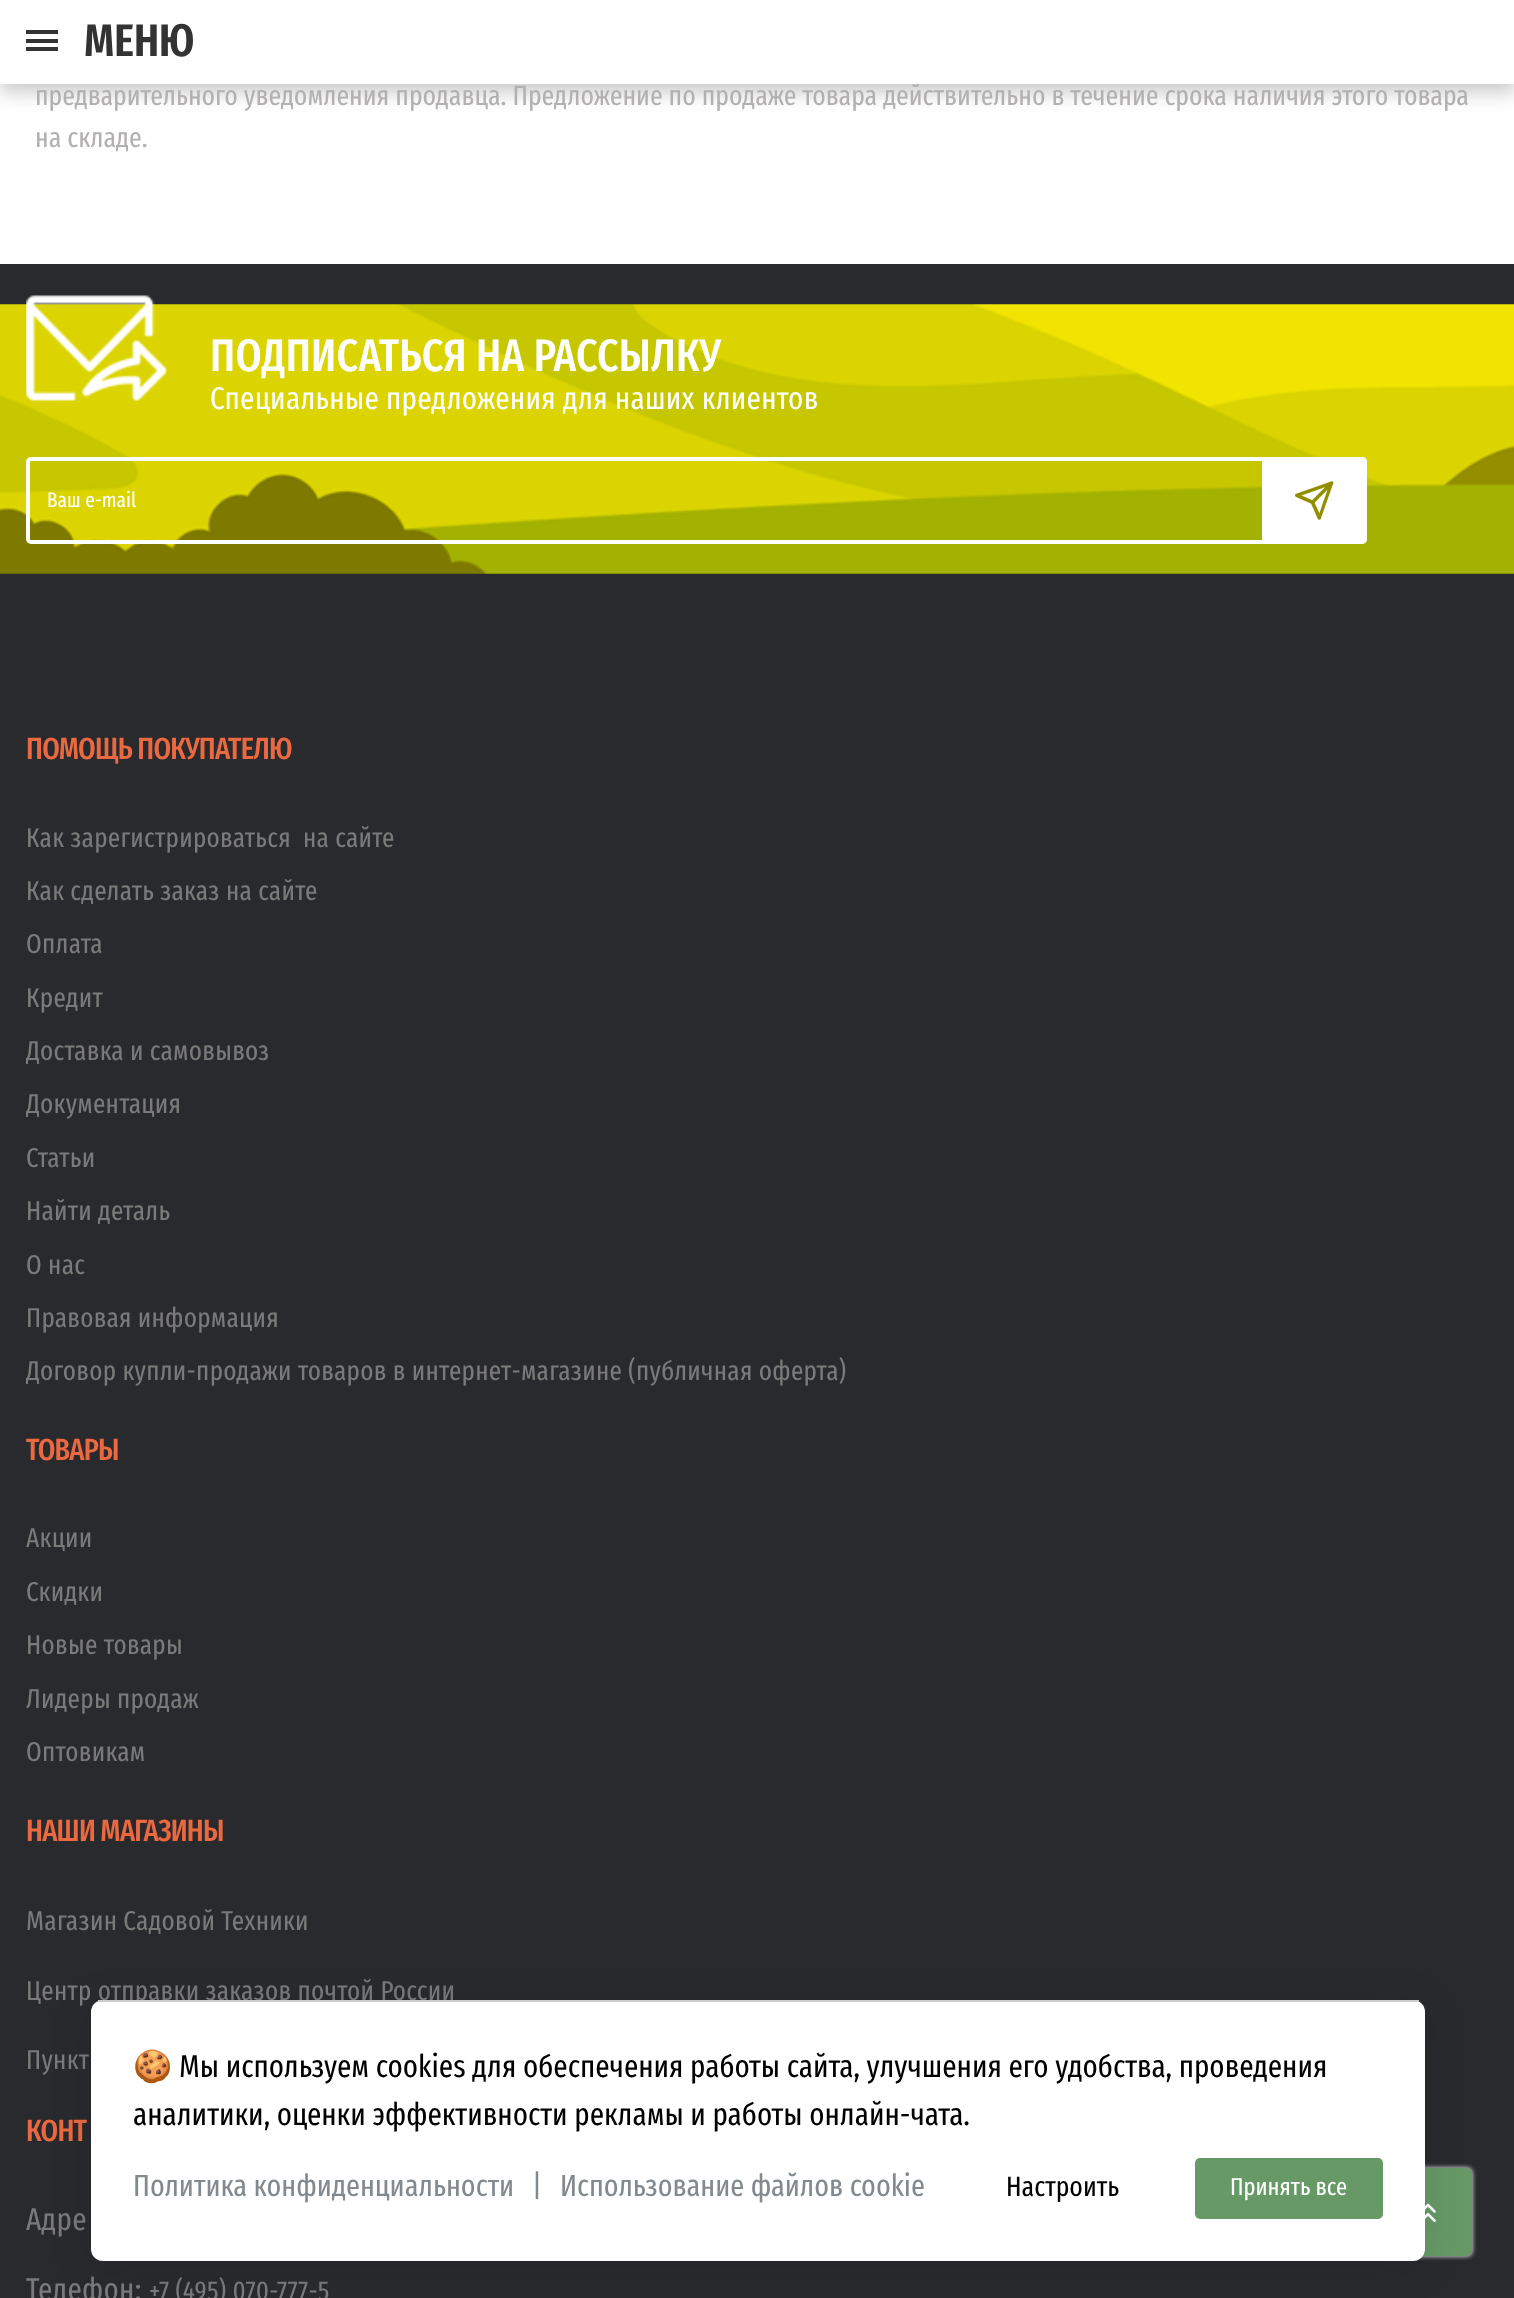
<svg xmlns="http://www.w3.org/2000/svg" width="1514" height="2298">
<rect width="100%" height="100%" fill="#fff"/>
<rect y="9" width="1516" height="84" fill="#00000033" filter="blur(9px)"/>
<text x="35" y="105" style="font-family:Fira Sans Extra Condensed;font-size:28px;fill:#b3b0b0">предварительного уведомления продавца. Предложение по продаже товара действительно в течение срока наличия этого товара</text>
<rect width="1514" height="84" fill="#fff"/>
<rect x="26" y="30" width="32" height="4" fill="#333"/>
<rect x="26" y="39" width="32" height="4" fill="#333"/>
<rect x="26" y="47" width="32" height="4" fill="#333"/>
<text x="84" y="56" style="font-family:Fira Sans Extra Condensed;font-size:45.5px;font-weight:600;fill:#333">МЕНЮ</text>
<text x="35" y="147" style="font-family:Fira Sans Extra Condensed;font-size:28px;fill:#b3b0b0">на складе.</text>
<rect y="264" width="1514" height="2034" fill="#292a2d"/>
<image x="0" y="304" width="1514" height="270" href="media/1.png"/>
<image x="26" y="295" width="141" height="106" href="media/2.png"/>
<text x="210" y="371" style="font-family:Fira Sans Extra Condensed;font-size:45.5px;font-weight:500;letter-spacing:0.28px;fill:#fff">ПОДПИСАТЬСЯ НА РАССЫЛКУ</text>
<text x="210" y="409" style="font-family:Fira Sans Extra Condensed;font-size:31.5px;letter-spacing:0.28px;fill:#fff">Специальные предложения для наших клиентов</text>
<rect x="28" y="459" width="1337" height="83" rx="3" fill="none" stroke="#fff" stroke-width="4"/>
<text x="47" y="507" style="font-family:Fira Sans Extra Condensed;font-size:21px;fill:#fff">Ваш e-mail</text>
<rect x="1262" y="457" width="105" height="87" rx="5" fill="#fff"/>
<image x="1295" y="481" width="39" height="39" href="media/3.png"/>
<text x="26" y="759" style="font-family:Fira Sans Extra Condensed;font-size:30.6px;font-weight:500;letter-spacing:-0.75px;fill:#ea6940">ПОМОЩЬ ПОКУПАТЕЛЮ</text>
<text x="26" y="847" style="font-family:Fira Sans Extra Condensed;font-size:27.3px;letter-spacing:0.28px;fill:#7a7a7a" xml:space="preserve">Как зарегистрироваться  на сайте</text>
<text x="26" y="900" style="font-family:Fira Sans Extra Condensed;font-size:27.3px;letter-spacing:0.28px;fill:#7a7a7a">Как сделать заказ на сайте</text>
<text x="26" y="953" style="font-family:Fira Sans Extra Condensed;font-size:27.3px;letter-spacing:0.28px;fill:#7a7a7a">Оплата</text>
<text x="26" y="1007" style="font-family:Fira Sans Extra Condensed;font-size:27.3px;letter-spacing:0.28px;fill:#7a7a7a">Кредит</text>
<text x="26" y="1060" style="font-family:Fira Sans Extra Condensed;font-size:27.3px;letter-spacing:0.28px;fill:#7a7a7a">Доставка и самовывоз</text>
<text x="26" y="1113" style="font-family:Fira Sans Extra Condensed;font-size:27.3px;letter-spacing:0.28px;fill:#7a7a7a">Документация</text>
<text x="26" y="1167" style="font-family:Fira Sans Extra Condensed;font-size:27.3px;letter-spacing:0.28px;fill:#7a7a7a">Статьи</text>
<text x="26" y="1220" style="font-family:Fira Sans Extra Condensed;font-size:27.3px;letter-spacing:0.28px;fill:#7a7a7a">Найти деталь</text>
<text x="26" y="1274" style="font-family:Fira Sans Extra Condensed;font-size:27.3px;letter-spacing:0.28px;fill:#7a7a7a">О нас</text>
<text x="26" y="1327" style="font-family:Fira Sans Extra Condensed;font-size:27.3px;letter-spacing:0.28px;fill:#7a7a7a">Правовая информация</text>
<text x="26" y="1380" style="font-family:Fira Sans Extra Condensed;font-size:27.3px;letter-spacing:0.28px;fill:#7a7a7a">Договор купли-продажи товаров в интернет-магазине (публичная оферта)</text>
<text x="26" y="1460" style="font-family:Fira Sans Extra Condensed;font-size:30.6px;font-weight:500;letter-spacing:-0.75px;fill:#ea6940">ТОВАРЫ</text>
<text x="26" y="1547" style="font-family:Fira Sans Extra Condensed;font-size:27.3px;letter-spacing:0.28px;fill:#7a7a7a">Акции</text>
<text x="26" y="1601" style="font-family:Fira Sans Extra Condensed;font-size:27.3px;letter-spacing:0.28px;fill:#7a7a7a">Скидки</text>
<text x="26" y="1654" style="font-family:Fira Sans Extra Condensed;font-size:27.3px;letter-spacing:0.28px;fill:#7a7a7a">Новые товары</text>
<text x="26" y="1708" style="font-family:Fira Sans Extra Condensed;font-size:27.3px;letter-spacing:0.28px;fill:#7a7a7a">Лидеры продаж</text>
<text x="26" y="1761" style="font-family:Fira Sans Extra Condensed;font-size:27.3px;letter-spacing:0.28px;fill:#7a7a7a">Оптовикам</text>
<text x="26" y="1841" style="font-family:Fira Sans Extra Condensed;font-size:30.6px;font-weight:500;letter-spacing:-0.75px;fill:#ea6940">НАШИ МАГАЗИНЫ</text>
<text x="26" y="1930" style="font-family:Fira Sans Extra Condensed;font-size:27.3px;letter-spacing:0.28px;fill:#7a7a7a">Магазин Садовой Техники</text>
<text x="26" y="2000" style="font-family:Fira Sans Extra Condensed;font-size:27.3px;letter-spacing:0.28px;fill:#7a7a7a">Центр отправки заказов почтой России</text>
<text x="26" y="2069" style="font-family:Fira Sans Extra Condensed;font-size:27.3px;letter-spacing:0.28px;fill:#7a7a7a">Пункт</text>
<text x="26" y="2141" style="font-family:Fira Sans Extra Condensed;font-size:30.6px;font-weight:500;letter-spacing:-0.75px;fill:#ea6940">КОНТ</text>
<text x="26" y="2230" style="font-family:Fira Sans Extra Condensed;font-size:31.5px;letter-spacing:0.28px;fill:#7a7a7a">Адре</text>
<text x="26" y="2300" style="font-family:Fira Sans Extra Condensed;font-size:31.5px;letter-spacing:0.28px;fill:#7a7a7a">Телефон:</text>
<text x="149" y="2300" style="font-family:Fira Sans Extra Condensed;font-size:27.3px;letter-spacing:0.28px;fill:#7a7a7a">+7 (495) 070-777-5</text>
<rect x="1384" y="2168" width="88" height="88" rx="5" fill="#fff" filter="blur(2.5px)"/>
<rect x="1384" y="2168" width="88" height="88" rx="5" fill="#696"/>
<image x="1425" y="2203" width="11" height="19" href="media/4.png"/>
<rect x="91" y="2006" width="1334" height="260" rx="12" fill="#0000001a" filter="blur(20px)"/>
<rect x="91" y="2000" width="1334" height="261" rx="12" fill="#fff"/>
<rect x="98" y="2000" width="1321" height="2" fill="#ccc"/>
<text x="133" y="2077" style="font-family:Noto Color Emoji;font-size:31.5px;fill:#000">🍪</text>
<text x="179" y="2077" style="font-family:Fira Sans Extra Condensed;font-size:31.5px;fill:#000">Мы используем cookies для обеспечения работы сайта, улучшения его удобства, проведения</text>
<text x="133" y="2125" style="font-family:Fira Sans Extra Condensed;font-size:31.5px;fill:#000">аналитики, оценки эффективности рекламы и работы онлайн-чата.</text>
<text x="133" y="2196" style="font-family:Fira Sans Extra Condensed;font-size:30.6px;fill:#828a8f">Политика конфиденциальности</text>
<text x="532" y="2196" style="font-family:Fira Sans Extra Condensed;font-size:30.6px;fill:#828a8f">|</text>
<text x="560" y="2196" style="font-family:Fira Sans Extra Condensed;font-size:30.6px;fill:#828a8f">Использование файлов cookie</text>
<text x="1006" y="2196" style="font-family:Fira Sans Extra Condensed;font-size:28px;fill:#000">Настроить</text>
<rect x="1195" y="2158" width="188" height="61" rx="5" fill="#696"/>
<text x="1230" y="2195" style="font-family:Fira Sans Extra Condensed;font-size:24.5px;fill:#fff">Принять все</text>
</svg>
